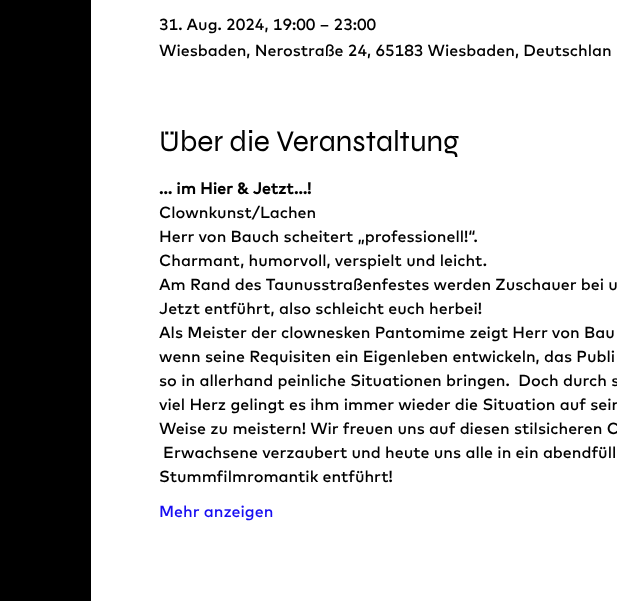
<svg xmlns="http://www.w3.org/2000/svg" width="617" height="601">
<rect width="100%" height="100%" fill="#000"/>
<rect x="91" width="526" height="601" fill="#fff"/>
<text x="159" y="30" style="font-family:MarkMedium;font-size:16px;font-weight:500;fill:#000">31. Aug. 2024, 19:00 – 23:00</text>
<text x="159" y="56" style="font-family:MarkMedium;font-size:16px;font-weight:500;fill:#000">Wiesbaden, Nerostraße 24, 65183 Wiesbaden, Deutschlan</text>
<text x="159" y="151" style="font-family:Syne;font-size:30px;fill:#000">Über die Veranstaltung</text>
<text x="159" y="194" style="font-family:MarkMedium;font-size:16px;font-weight:bold;fill:#000">… im Hier &amp; Jetzt…!</text>
<text x="159" y="218" style="font-family:MarkMedium;font-size:16px;font-weight:500;fill:#000">Clownkunst/Lachen</text>
<text x="159" y="242" style="font-family:MarkMedium;font-size:16px;font-weight:500;fill:#000">Herr von Bauch scheitert „professionell!“.</text>
<text x="159" y="266" style="font-family:MarkMedium;font-size:16px;font-weight:500;fill:#000">Charmant, humorvoll, verspielt und leicht.</text>
<text x="159" y="290" style="font-family:MarkMedium;font-size:16px;font-weight:500;fill:#000">Am Rand des Taunusstraßenfestes werden Zuschauer bei u</text>
<text x="159" y="314" style="font-family:MarkMedium;font-size:16px;font-weight:500;fill:#000">Jetzt entführt, also schleicht euch herbei!</text>
<text x="159" y="338" style="font-family:MarkMedium;font-size:16px;font-weight:500;fill:#000">Als Meister der clownesken Pantomime zeigt Herr von Bau</text>
<text x="159" y="362" style="font-family:MarkMedium;font-size:16px;font-weight:500;fill:#000">wenn seine Requisiten ein Eigenleben entwickeln, das Publi</text>
<text x="159" y="386" style="font-family:MarkMedium;font-size:16px;font-weight:500;fill:#000" xml:space="preserve">so in allerhand peinliche Situationen bringen.  Doch durch s</text>
<text x="159" y="410" style="font-family:MarkMedium;font-size:16px;font-weight:500;fill:#000">viel Herz gelingt es ihm immer wieder die Situation auf sein</text>
<text x="159" y="434" style="font-family:MarkMedium;font-size:16px;font-weight:500;fill:#000">Weise zu meistern! Wir freuen uns auf diesen stilsicheren C</text>
<text x="163" y="458" style="font-family:MarkMedium;font-size:16px;font-weight:500;fill:#000">Erwachsene verzaubert und heute uns alle in ein abendfüll</text>
<text x="159" y="482" style="font-family:MarkMedium;font-size:16px;font-weight:500;fill:#000">Stummfilmromantik entführt!</text>
<text x="159" y="517" style="font-family:MarkMedium;font-size:16px;font-weight:500;fill:#170df2">Mehr anzeigen</text>
</svg>
